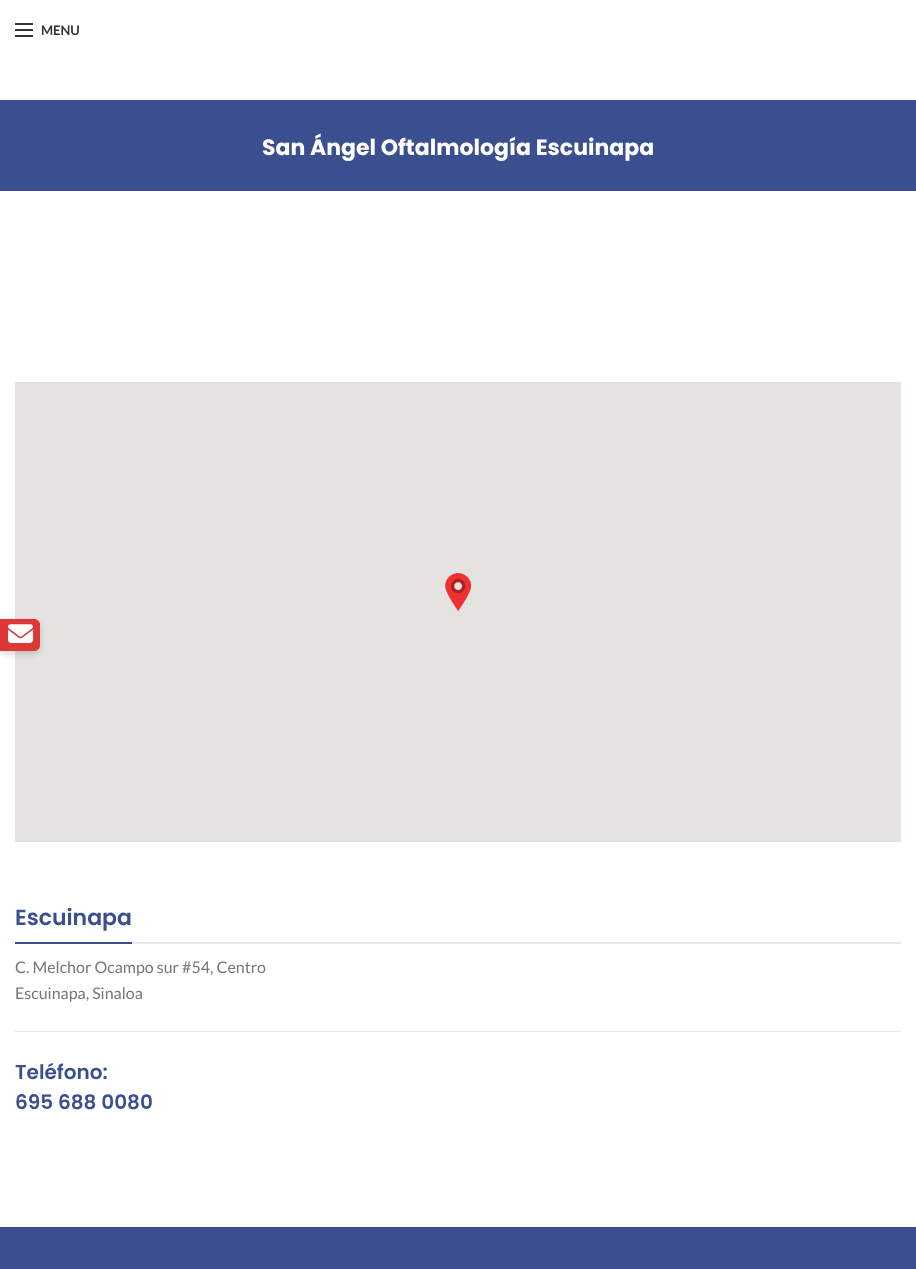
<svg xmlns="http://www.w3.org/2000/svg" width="916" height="1269">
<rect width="100%" height="100%" fill="#fff"/>
<rect x="15" y="29" width="18" height="2" fill="#333"/>
<rect x="15" y="23" width="18" height="2" fill="#333"/>
<rect x="15" y="35" width="18" height="2" fill="#333"/>
<text x="41" y="35" style="font-family:Lato;font-size:13px;font-weight:bold;fill:#333">MENU</text>
<rect y="100" width="916" height="91" fill="#3b4e8f"/>
<text x="262" y="155" style="font-family:Poppins;font-size:22px;font-weight:bold;fill:#fff">San Ángel Oftalmología Escuinapa</text>
<rect x="15" y="382" width="886" height="460" fill="#e5e3df"/>
<image x="445" y="573" width="27" height="38" href="media/1.png"/>
<rect x="15" y="1031" width="886" height="1" fill="#e5e5e5"/>
<rect x="132" y="942" width="769" height="2" fill="#e8e8e8"/>
<rect x="15" y="942" width="117" height="2" fill="#3b4e8f"/>
<text x="15" y="925" style="font-family:Poppins;font-size:22px;font-weight:600;fill:#3b4e8f">Escuinapa</text>
<text x="15" y="973" style="font-family:Lato;font-size:16px;fill:#777">C. Melchor Ocampo sur #54, Centro</text>
<text x="15" y="999" style="font-family:Lato;font-size:16px;fill:#777">Escuinapa, Sinaloa</text>
<text x="15" y="1079" style="font-family:Poppins;font-size:20px;font-weight:600;fill:#3b4e8f">Teléfono:</text>
<text x="15" y="1109" style="font-family:Poppins;font-size:20px;font-weight:600;fill:#3b4e8f">695 688 0080</text>
<rect y="1227" width="916" height="42" fill="#3b4e8f"/>
<rect y="622" width="40" height="32" rx="6" fill="#00000029" filter="blur(3px)"/>
<path d="M0 619h34c3.5 0 6 2.5 6 6v20c0 3.5-2.5 6-6 6h-34z" fill="#dd3737"/>
<image x="8" y="624" width="25" height="19" href="media/2.png"/>
</svg>
